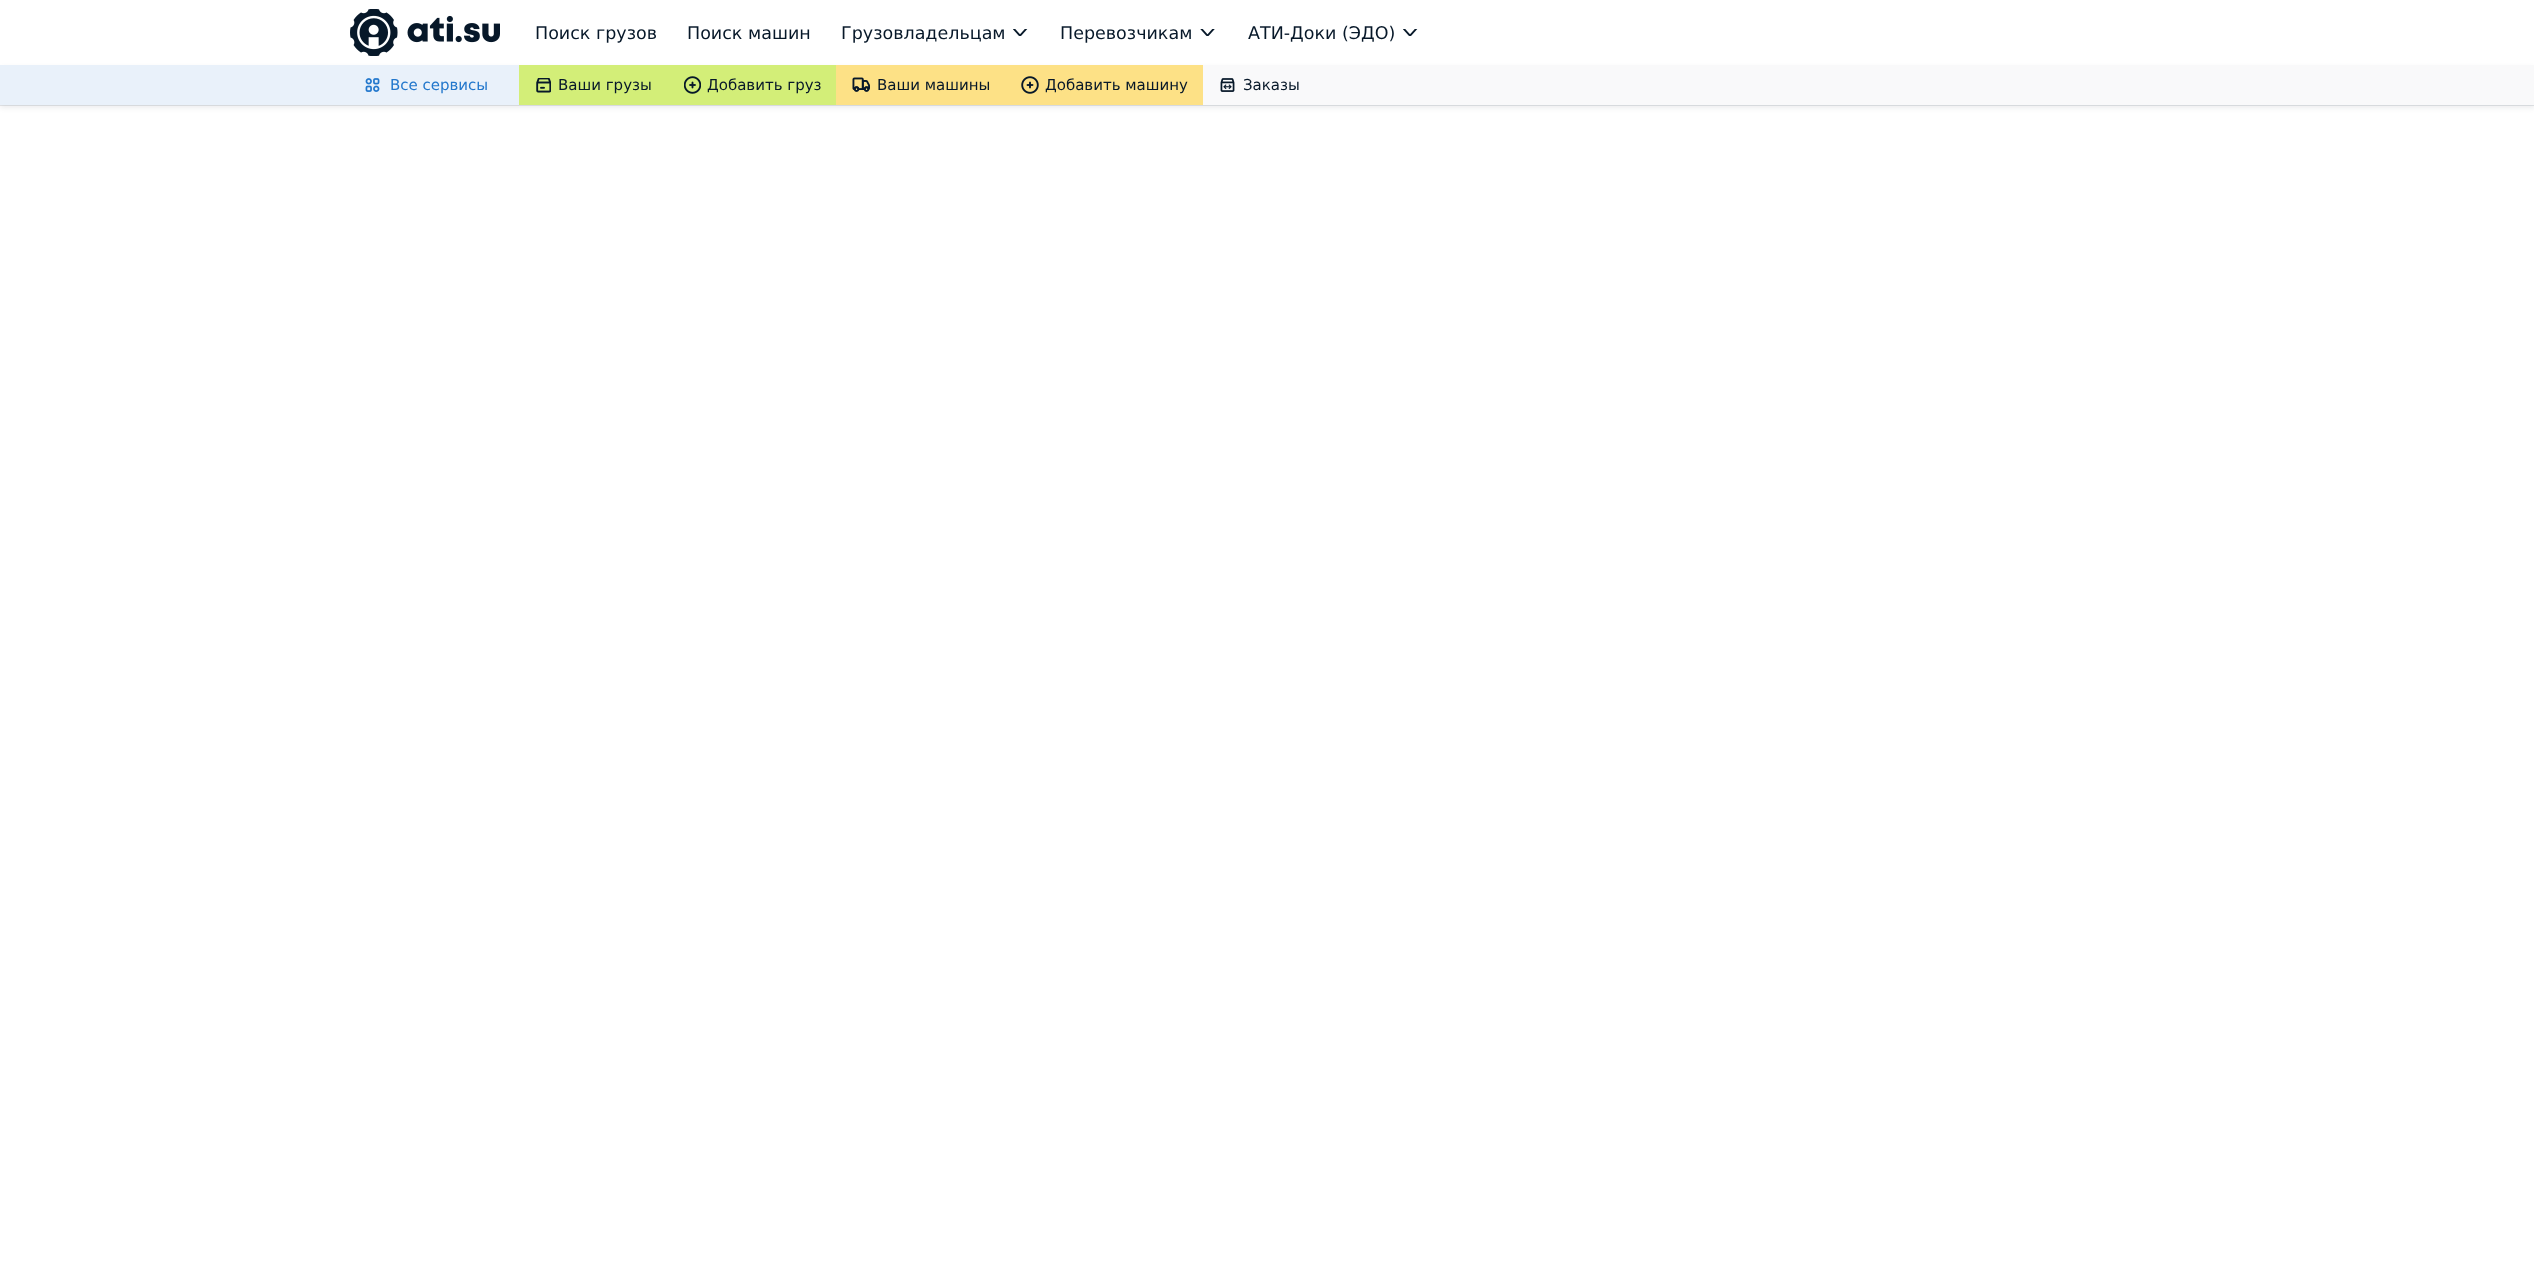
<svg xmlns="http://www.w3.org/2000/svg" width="2534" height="1274">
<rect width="100%" height="100%" fill="#fff"/>
<image x="350" y="9" width="150" height="47" href="media/1.png"/>
<text x="535" y="39" style="font-family:DejaVu Sans;font-size:17.5px;fill:#071829">Поиск грузов</text>
<text x="687" y="39" style="font-family:DejaVu Sans;font-size:17.5px;fill:#071829">Поиск машин</text>
<text x="841" y="39" style="font-family:DejaVu Sans;font-size:17.5px;fill:#071829">Грузовладельцам</text>
<image x="1013" y="29" width="15" height="7" href="media/2.png"/>
<text x="1060" y="39" style="font-family:DejaVu Sans;font-size:17.5px;fill:#071829">Перевозчикам</text>
<image x="1200" y="29" width="15" height="7" href="media/3.png"/>
<text x="1248" y="39" style="font-family:DejaVu Sans;font-size:17.5px;fill:#071829">АТИ-Доки (ЭДО)</text>
<image x="1403" y="29" width="15" height="7" href="media/2.png"/>
<rect y="105" width="2534" height="1" fill="#e6e8ea"/>
<rect y="68" width="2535" height="40" fill="#07182914" filter="blur(2.5px)"/>
<rect x="1203" y="65" width="1331" height="40" fill="#f9f9fa"/>
<rect y="65" width="519" height="40" fill="#e9f1fa"/>
<image x="365" y="78" width="15" height="14" href="media/4.png"/>
<text x="390" y="90" style="font-family:DejaVu Sans;font-size:15px;fill:#27c">Все сервисы</text>
<rect x="519" y="65" width="317" height="40" fill="#d3ee78"/>
<image x="536" y="78" width="15" height="15" href="media/5.png"/>
<text x="558" y="90" style="font-family:DejaVu Sans;font-size:15px;fill:#071829">Ваши грузы</text>
<image x="684" y="76" width="17" height="18" href="media/6.png"/>
<text x="707" y="90" style="font-family:DejaVu Sans;font-size:15px;fill:#071829">Добавить груз</text>
<rect x="836" y="65" width="367" height="40" fill="#fde186"/>
<image x="852" y="77" width="18" height="15" href="media/7.png"/>
<text x="877" y="90" style="font-family:DejaVu Sans;font-size:15px;fill:#071829">Ваши машины</text>
<image x="1021" y="76" width="18" height="18" href="media/8.png"/>
<text x="1045" y="90" style="font-family:DejaVu Sans;font-size:15px;fill:#071829">Добавить машину</text>
<image x="1220" y="78" width="15" height="14" href="media/9.png"/>
<text x="1243" y="90" style="font-family:DejaVu Sans;font-size:15px;fill:#071829">Заказы</text>
</svg>
